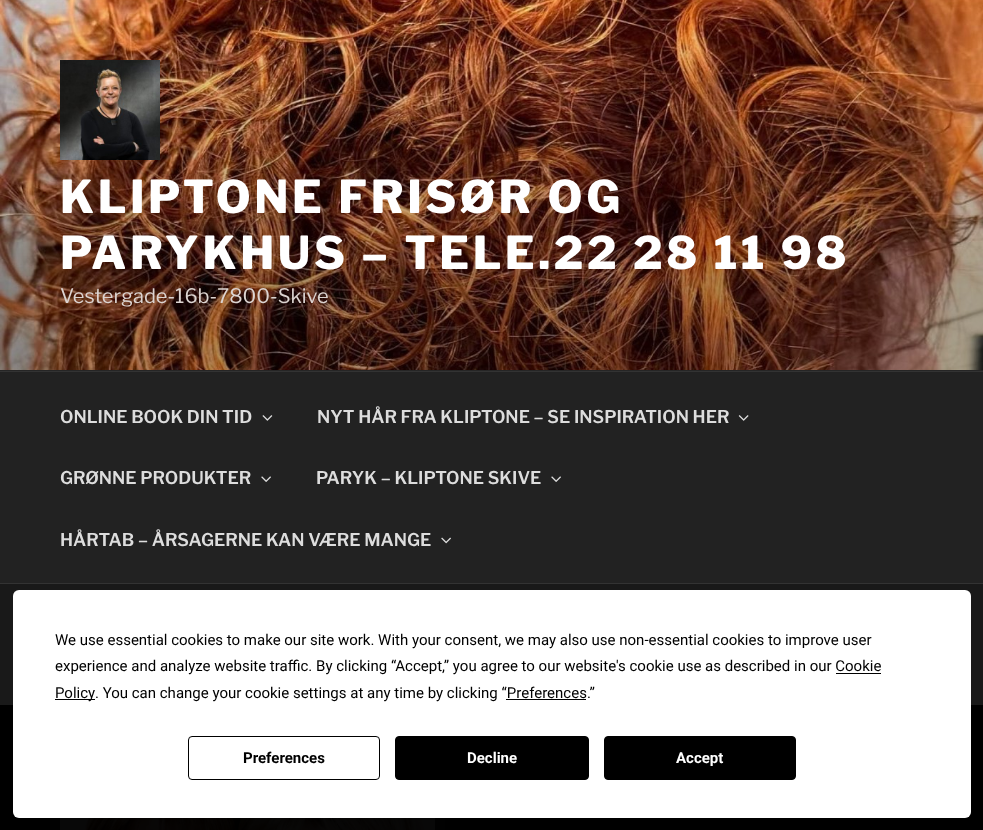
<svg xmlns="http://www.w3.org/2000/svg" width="983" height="830">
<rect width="100%" height="100%" fill="#262626"/>
<image x="0" y="0" width="983" height="370" href="media/1.png"/>
<image x="60" y="60" width="100" height="100" href="media/2.png"/>
<text x="60" y="213" style="font-family:Libre Franklin;font-size:45px;font-weight:100;letter-spacing:3.6px;fill:#fff">KLIPTONE FRISØR OG</text>
<text x="60" y="269" style="font-family:Libre Franklin;font-size:45px;font-weight:100;letter-spacing:3.6px;fill:#fff">PARYKHUS – TELE.22 28 11 98</text>
<text x="60" y="303" style="font-family:'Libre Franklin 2';font-size:20px;font-weight:100;fill:#dcd4d1">Vestergade-16b-7800-Skive</text>
<rect y="372" width="983" height="211" fill="#222"/>
<rect y="371" width="983" height="1" fill="#333"/>
<rect y="583" width="983" height="1" fill="#333"/>
<text x="60" y="423" style="font-family:'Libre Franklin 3';font-size:17.5px;font-weight:100;fill:#ddd">ONLINE BOOK DIN TID</text>
<image x="262" y="415" width="11" height="6" href="media/3.png"/>
<text x="317" y="423" style="font-family:'Libre Franklin 3';font-size:17.5px;font-weight:100;fill:#ddd">NYT HÅR FRA KLIPTONE – SE INSPIRATION HER</text>
<image x="738" y="415" width="11" height="6" href="media/4.png"/>
<text x="60" y="484" style="font-family:'Libre Franklin 3';font-size:17.5px;font-weight:100;fill:#ddd">GRØNNE PRODUKTER</text>
<image x="261" y="476" width="10" height="6" href="media/5.png"/>
<text x="316" y="484" style="font-family:'Libre Franklin 3';font-size:17.5px;font-weight:100;fill:#ddd">PARYK – KLIPTONE SKIVE</text>
<image x="551" y="476" width="10" height="6" href="media/5.png"/>
<text x="60" y="546" style="font-family:'Libre Franklin 3';font-size:17.5px;font-weight:100;fill:#ddd">HÅRTAB – ÅRSAGERNE KAN VÆRE MANGE</text>
<image x="441" y="537" width="10" height="7" href="media/6.png"/>
<rect y="584" width="983" height="246" fill="#191919"/>
<rect x="55" y="751" width="385" height="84" fill="none" stroke="#222" stroke-width="10"/>
<image x="60" y="818" width="375" height="12" href="media/7.png"/>
<rect y="705" width="983" height="125" fill="#000000f7"/>
<rect x="13" y="590" width="958" height="228" rx="6" fill="#fff"/>
<text x="55" y="645" style="font-family:Roboto;font-size:15px;fill:#000">We use essential cookies to make our site work. With your consent, we may also use non-essential cookies to improve user</text>
<text x="55" y="671" style="font-family:Roboto;font-size:15px;fill:#000">experience and analyze website traffic. By clicking “Accept,” you agree to our website's cookie use as described in our Cookie</text>
<rect x="55" y="699" width="40" height="1" fill="#000"/>
<text x="55" y="698" style="font-family:Roboto;font-size:15px;fill:#000">Policy</text>
<rect x="836" y="673" width="45" height="1" fill="#000"/>
<text x="95" y="698" style="font-family:Roboto;font-size:15px;fill:#000">. You can change your cookie settings at any time by clicking “Preferences.”</text>
<rect x="506" y="699" width="80" height="1" fill="#000"/>
<rect x="188.5" y="736.5" width="191" height="43" rx="3.5" fill="none" stroke="#000"/>
<text x="243" y="763" style="font-family:Roboto;font-size:15px;font-weight:bold;fill:#000">Preferences</text>
<rect x="395.5" y="736.5" width="193" height="43" rx="3.5" fill="#000" stroke="#000"/>
<text x="467" y="763" style="font-family:Roboto;font-size:15px;font-weight:bold;fill:#fff">Decline</text>
<rect x="604.5" y="736.5" width="191" height="43" rx="3.5" fill="#000" stroke="#000"/>
<text x="676" y="763" style="font-family:Roboto;font-size:15px;font-weight:bold;fill:#fff">Accept</text>
</svg>
